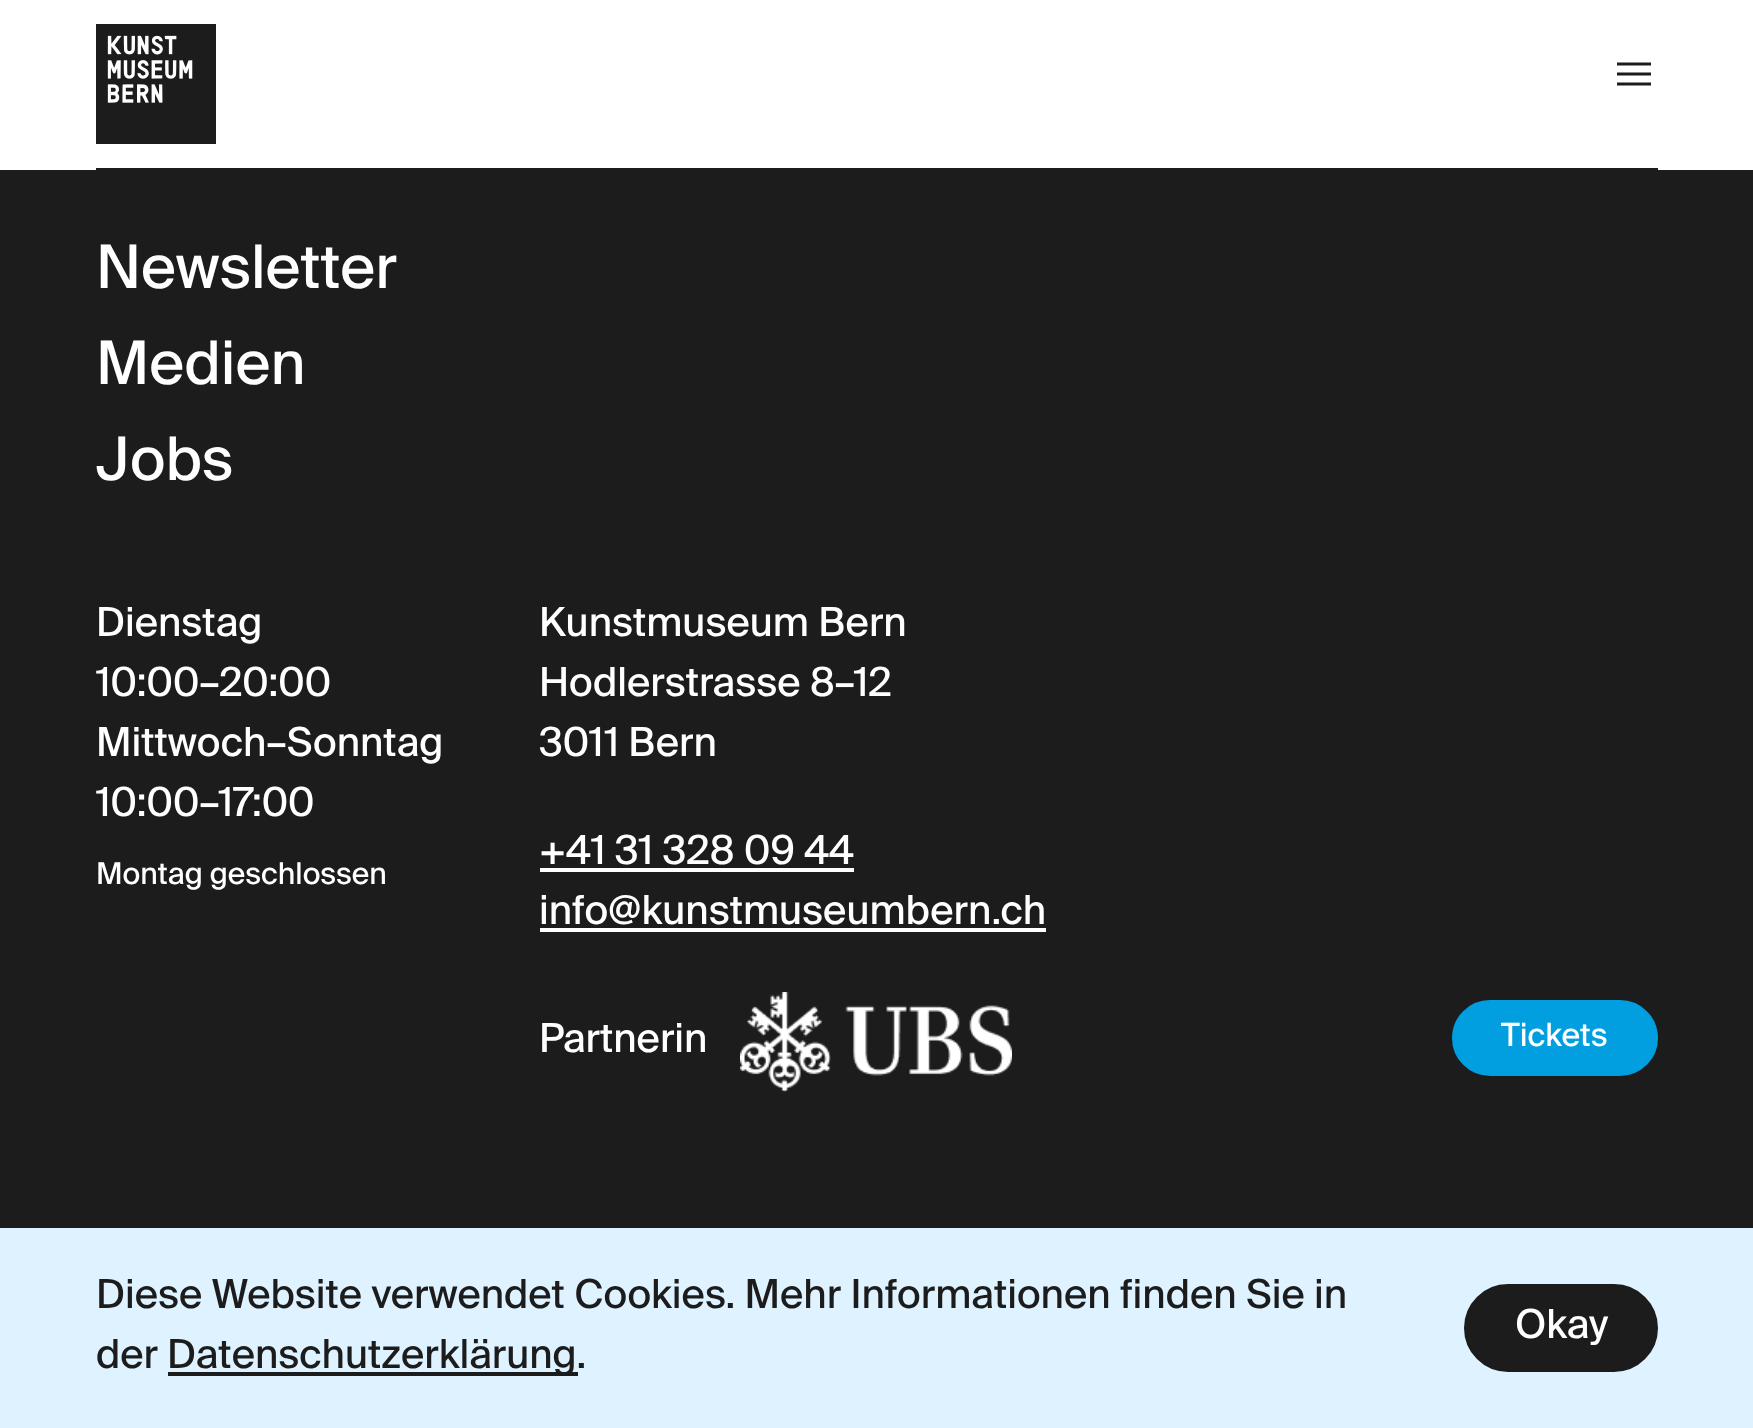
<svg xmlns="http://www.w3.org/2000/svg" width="1753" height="1428">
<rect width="100%" height="100%" fill="#1c1c1c"/>
<rect width="1753" height="170" fill="#fff"/>
<image x="96" y="24" width="120" height="120" href="media/1.png"/>
<path d="M1617 85.5v-3h34v3zm0-10v-3h34v3zm0-10v-3h34v3z" fill="#1c1c1c"/>
<rect x="96" y="168" width="1562" height="2" fill="#1c1c1c"/>
<text x="96" y="288" style="font-family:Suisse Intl;font-size:60px;fill:#fff">Newsletter</text>
<text x="96" y="384" style="font-family:Suisse Intl;font-size:60px;fill:#fff">Medien</text>
<text x="96" y="480" style="font-family:Suisse Intl;font-size:60px;fill:#fff">Jobs</text>
<text x="96" y="636" style="font-family:Suisse Intl;font-size:40px;fill:#fff">Dienstag</text>
<text x="96" y="696" style="font-family:Suisse Intl;font-size:40px;fill:#fff">10:00–20:00</text>
<text x="96" y="756" style="font-family:Suisse Intl;font-size:40px;fill:#fff">Mittwoch–Sonntag</text>
<text x="96" y="816" style="font-family:Suisse Intl;font-size:40px;fill:#fff">10:00–17:00</text>
<text x="96" y="884" style="font-family:Suisse Intl;font-size:30px;fill:#fff">Montag geschlossen</text>
<text x="539" y="636" style="font-family:Suisse Intl;font-size:40px;fill:#fff">Kunstmuseum Bern</text>
<text x="539" y="696" style="font-family:Suisse Intl;font-size:40px;fill:#fff">Hodlerstrasse 8–12</text>
<text x="539" y="756" style="font-family:Suisse Intl;font-size:40px;fill:#fff">3011 Bern</text>
<text x="539" y="864" style="font-family:Suisse Intl;font-size:40px;fill:#fff">+41 31 328 09 44</text>
<rect x="540" y="868" width="314" height="4" fill="#fff"/>
<text x="539" y="924" style="font-family:Suisse Intl;font-size:40px;fill:#fff">info@kunstmuseumbern.ch</text>
<rect x="540" y="928" width="506" height="4" fill="#fff"/>
<text x="539" y="1052" style="font-family:Suisse Intl;font-size:40px;fill:#fff">Partnerin</text>
<image x="740" y="992" width="272" height="100" href="media/2.png"/>
<rect x="1453" y="1001" width="204" height="74" rx="37" fill="#019ee0" stroke="#019ee0" stroke-width="2"/>
<text x="1501" y="1046" style="font-family:Suisse Intl;font-size:32px;fill:#fff">Tickets</text>
<rect y="1228" width="1753" height="200" fill="#def2ff"/>
<text x="96" y="1308" style="font-family:Suisse Intl;font-size:40px;fill:#1c1c1c">Diese Website verwendet Cookies. Mehr Informationen finden Sie in</text>
<text x="96" y="1368" style="font-family:Suisse Intl;font-size:40px;fill:#1c1c1c">der</text>
<rect x="168" y="1372" width="410" height="4" fill="#1c1c1c"/>
<text x="167" y="1368" style="font-family:Suisse Intl;font-size:40px;fill:#1c1c1c">Datenschutzerklärung.</text>
<rect x="1465" y="1285" width="192" height="86" rx="43" fill="#1c1c1c" stroke="#1c1c1c" stroke-width="2"/>
<text x="1515" y="1338" style="font-family:Suisse Intl;font-size:40px;fill:#fff">Okay</text>
</svg>
